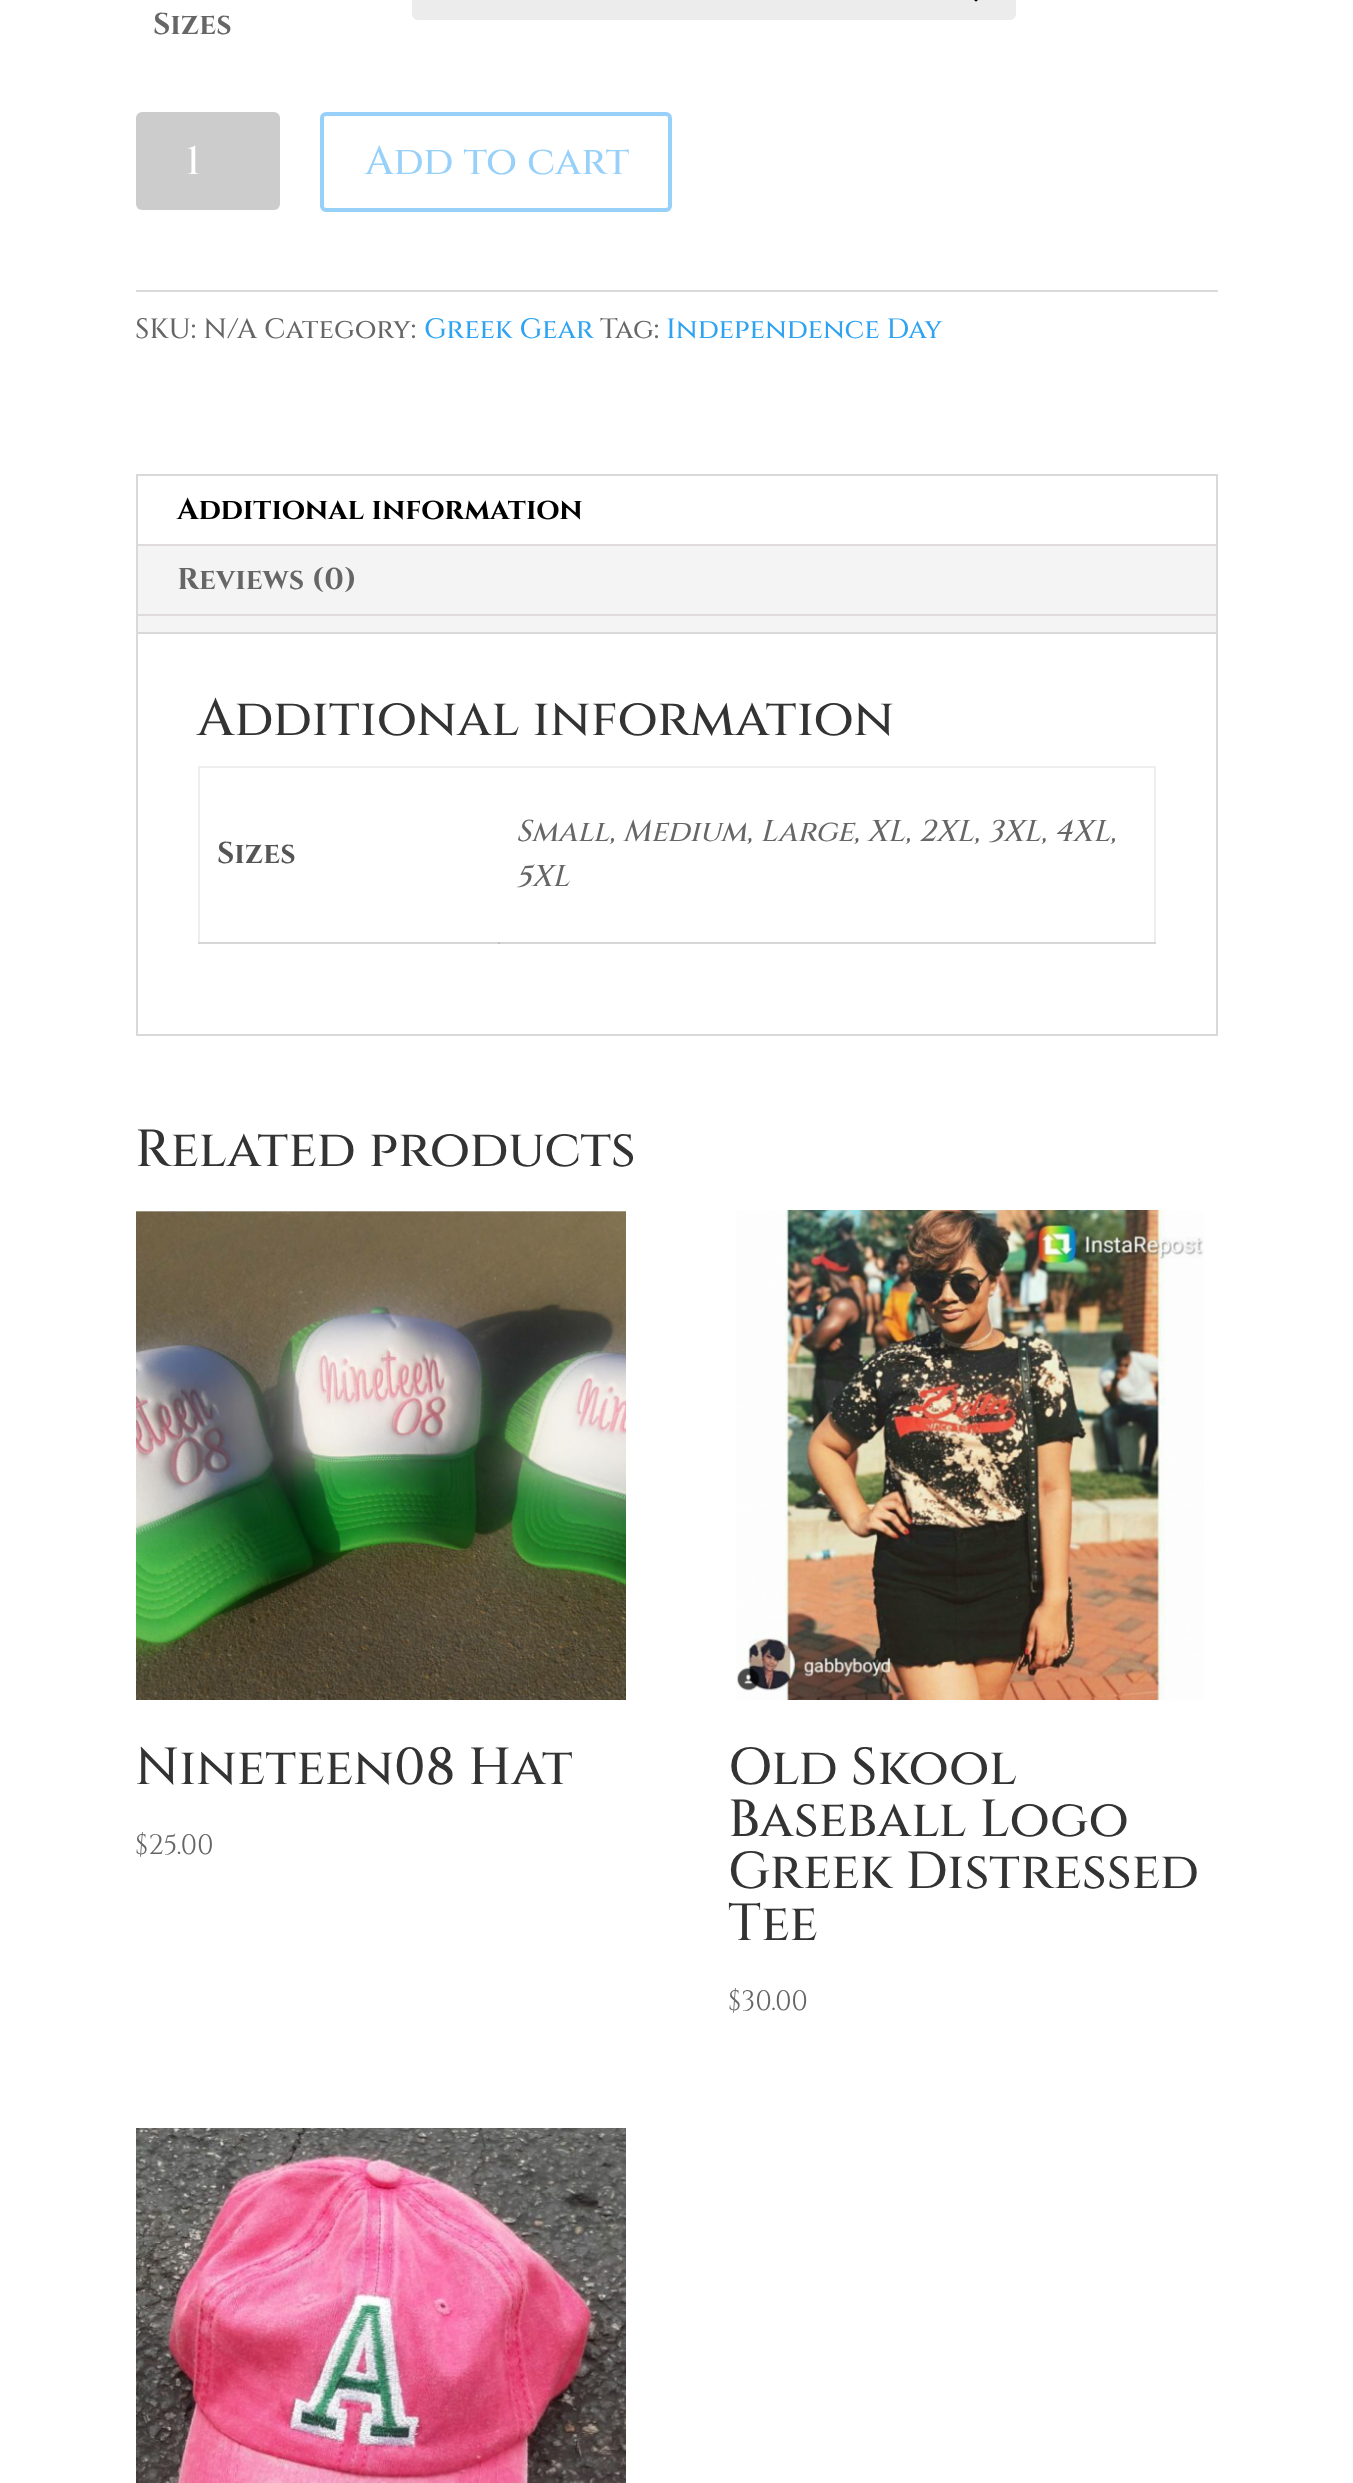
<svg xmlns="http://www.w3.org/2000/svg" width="1353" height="2483">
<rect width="100%" height="100%" fill="#fff"/>
<rect x="412" y="-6" width="604" height="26" rx="6" fill="#ececec"/>
<path d="M968-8l8 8l8-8" fill="none" stroke="#000" stroke-width="2.7" stroke-linecap="round" stroke-linejoin="round"/>
<text x="153" y="34" style="font-family:Cinzel;font-size:30px;font-weight:bold;fill:#666">Sizes</text>
<rect x="136" y="112" width="144" height="98" rx="6" fill="#ccc"/>
<text x="186" y="174" style="font-family:Cinzel;font-size:40px;font-weight:500;fill:#fff">1</text>
<rect x="322" y="114" width="348" height="96" rx="4" fill="none" stroke="#97d1f9" stroke-width="4"/>
<text x="365" y="174" style="font-family:Cinzel;font-size:40px;font-weight:500;fill:#97d1f9">Add to cart</text>
<rect x="136" y="290" width="1082" height="2" fill="#dadada"/>
<text x="135" y="338" style="font-family:Cinzel;font-size:28px;font-weight:500;fill:#666">SKU: N/A Category:</text>
<text x="424" y="338" style="font-family:Cinzel;font-size:28px;font-weight:500;fill:#2ea3f2">Greek Gear</text>
<text x="600" y="338" style="font-family:Cinzel;font-size:28px;font-weight:500;fill:#666">Tag:</text>
<text x="666" y="338" style="font-family:Cinzel;font-size:28px;font-weight:500;fill:#2ea3f2">Independence Day</text>
<rect x="137" y="475" width="1080" height="560" fill="none" stroke="#d9d9d9" stroke-width="2"/>
<rect x="138" y="546" width="1078" height="86" fill="#f4f4f4"/>
<rect x="138" y="544" width="1078" height="2" fill="#e0dadf"/>
<text x="177" y="519" style="font-family:Cinzel;font-size:30px;font-weight:bold;fill:#000">Additional information</text>
<rect x="138" y="614" width="1078" height="2" fill="#e0dadf"/>
<text x="177" y="589" style="font-family:Cinzel;font-size:30px;font-weight:bold;fill:#666">Reviews (0)</text>
<rect x="138" y="632" width="1078" height="2" fill="#d9d9d9"/>
<text x="197" y="735" style="font-family:Cinzel;font-size:52px;font-weight:500;fill:#333">Additional information</text>
<rect x="198" y="766" width="958" height="2" fill="#eee"/>
<rect x="1154" y="766" width="2" height="178" fill="#eee"/>
<rect x="198" y="942" width="958" height="2" fill="#d6d6d6"/>
<rect x="198" y="766" width="2" height="178" fill="#eee"/>
<rect x="198" y="942" width="2" height="2" fill="#d6d6d6"/>
<text x="217" y="863" style="font-family:Cinzel;font-size:30px;font-weight:bold;fill:#555">Sizes</text>
<rect x="498" y="942" width="2" height="2" fill="#c1c1c1"/>
<text x="516" y="841" style="font-family:Cinzel;font-size:30px;font-weight:500;font-style:italic;fill:#666">Small, Medium, Large, XL, 2XL, 3XL, 4XL,</text>
<text x="516" y="886" style="font-family:Cinzel;font-size:30px;font-weight:500;font-style:italic;fill:#666">5XL</text>
<text x="135" y="1166" style="font-family:Cinzel;font-size:52px;font-weight:500;fill:#333">Related products</text>
<image x="136" y="1211" width="490" height="489" href="media/1.png"/>
<text x="135" y="1784" style="font-family:Cinzel;font-size:52px;font-weight:500;fill:#333">Nineteen08 Hat</text>
<text x="135" y="1854" style="font-family:Cinzel;font-size:28px;fill:#666">$25.00</text>
<image x="736" y="1210" width="468" height="490" href="media/2.png"/>
<text x="728" y="1784" style="font-family:Cinzel;font-size:52px;font-weight:500;fill:#333">Old Skool</text>
<text x="728" y="1836" style="font-family:Cinzel;font-size:52px;font-weight:500;fill:#333">Baseball Logo</text>
<text x="728" y="1888" style="font-family:Cinzel;font-size:52px;font-weight:500;fill:#333">Greek Distressed</text>
<text x="728" y="1940" style="font-family:Cinzel;font-size:52px;font-weight:500;fill:#333">Tee</text>
<text x="728" y="2010" style="font-family:Cinzel;font-size:28px;fill:#666">$30.00</text>
<image x="136" y="2128" width="490" height="355" href="media/3.png"/>
</svg>
